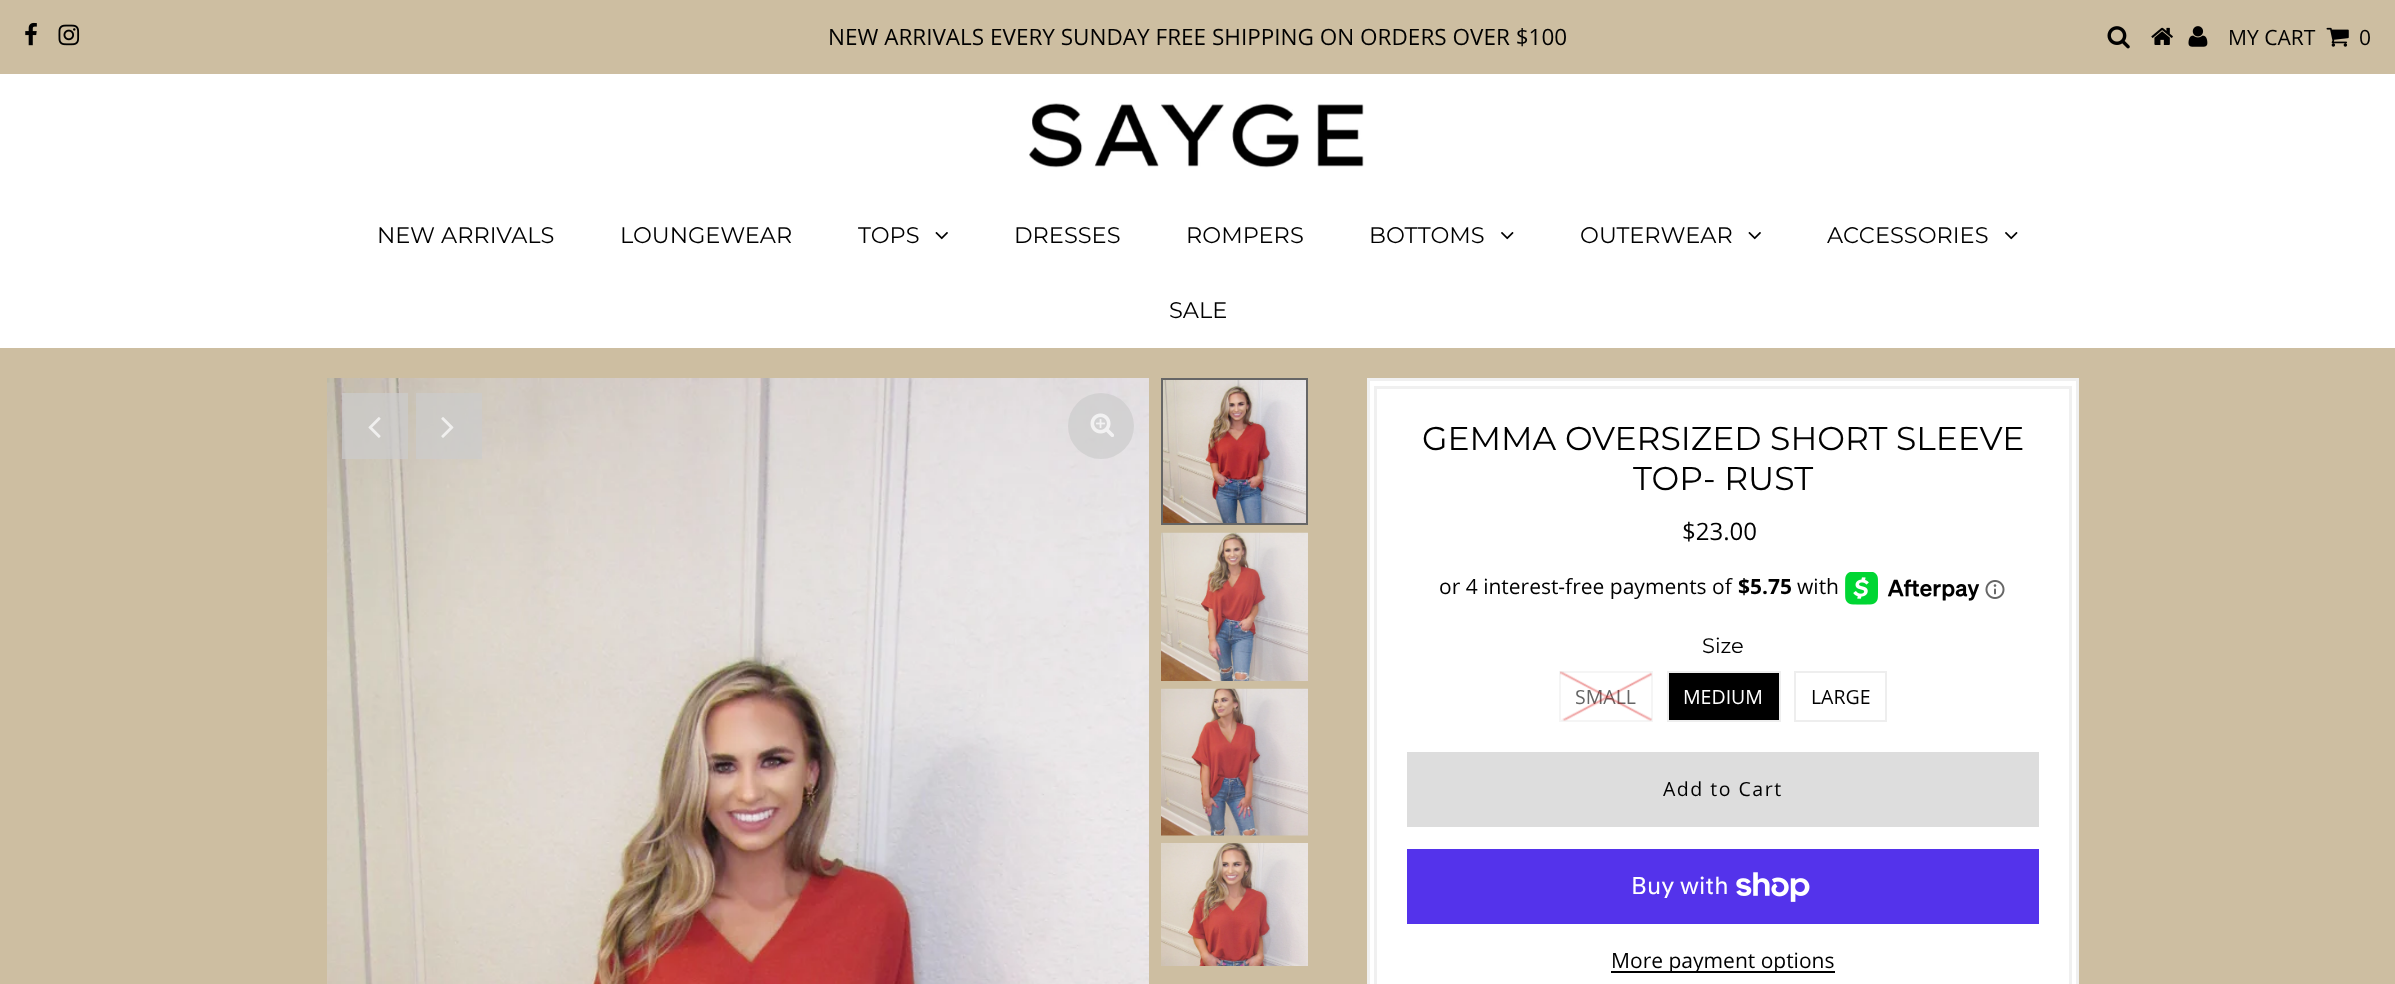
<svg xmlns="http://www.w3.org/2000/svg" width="2395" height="984">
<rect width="100%" height="100%" fill="#cdbea1"/>
<image x="25" y="22" width="12" height="24" href="media/1.png"/>
<image x="58" y="24" width="22" height="22" href="media/2.png"/>
<text x="828" y="45" style="font-family:Open Sans;font-size:22.5px;fill:#000">NEW ARRIVALS EVERY SUNDAY FREE SHIPPING ON ORDERS OVER $100</text>
<image x="2107" y="26" width="23" height="23" href="media/3.png"/>
<image x="2151" y="27" width="22" height="18" href="media/4.png"/>
<image x="2188" y="26" width="20" height="21" href="media/5.png"/>
<text x="2228" y="45" style="font-family:Open Sans;font-size:21px;fill:#000">MY CART</text>
<image x="2326" y="27" width="23" height="20" href="media/6.png"/>
<text x="2359" y="45" style="font-family:Open Sans;font-size:21px;fill:#000">0</text>
<rect y="74" width="2395" height="274" fill="#fff"/>
<image x="1029" y="103" width="335" height="65" href="media/7.png"/>
<text x="377" y="243" style="font-family:Montserrat;font-size:22.5px;fill:#000">NEW ARRIVALS</text>
<text x="620" y="243" style="font-family:Montserrat;font-size:22.5px;fill:#000">LOUNGEWEAR</text>
<text x="858" y="243" style="font-family:Montserrat;font-size:22.5px;fill:#000">TOPS</text>
<image x="935" y="232" width="13" height="8" href="media/8.png"/>
<text x="1014" y="243" style="font-family:Montserrat;font-size:22.5px;fill:#000">DRESSES</text>
<text x="1186" y="243" style="font-family:Montserrat;font-size:22.5px;fill:#000">ROMPERS</text>
<text x="1369" y="243" style="font-family:Montserrat;font-size:22.5px;fill:#000">BOTTOMS</text>
<image x="1501" y="232" width="13" height="8" href="media/9.png"/>
<text x="1580" y="243" style="font-family:Montserrat;font-size:22.5px;fill:#000">OUTERWEAR</text>
<image x="1748" y="232" width="13" height="8" href="media/8.png"/>
<text x="1827" y="243" style="font-family:Montserrat;font-size:22.5px;fill:#000">ACCESSORIES</text>
<image x="2005" y="232" width="13" height="8" href="media/9.png"/>
<text x="1169" y="318" style="font-family:Montserrat;font-size:22.5px;fill:#000">SALE</text>
<image x="327" y="378" width="822" height="606" href="media/10.png"/>
<circle cx="1101" cy="426" r="33" fill="#ccccccb3"/>
<image x="1090" y="413" width="24" height="24" href="media/11.png"/>
<rect x="342" y="393" width="66" height="66" fill="#ccccccb3"/>
<image x="368" y="417" width="13" height="21" href="media/12.png"/>
<rect x="416" y="393" width="66" height="66" fill="#ccccccb3"/>
<image x="441" y="417" width="13" height="21" href="media/13.png"/>
<image x="1163" y="380" width="143" height="143" href="media/14.png"/>
<rect x="1162" y="379" width="145" height="145" fill="none" stroke="#666" stroke-width="2"/>
<image x="1161" y="532" width="147" height="149" href="media/15.png"/>
<image x="1161" y="688" width="147" height="148" href="media/16.png"/>
<image x="1161" y="843" width="147" height="123" href="media/17.png"/>
<rect x="1368.5" y="379.5" width="709" height="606" fill="#fff" stroke="#f0f0f0" stroke-width="3"/>
<rect x="1375.5" y="387.5" width="695" height="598" fill="none" stroke="#f0f0f0" stroke-width="3"/>
<text x="1422" y="450" style="font-family:Montserrat;font-size:33px;fill:#000">GEMMA OVERSIZED SHORT SLEEVE</text>
<text x="1633" y="490" style="font-family:Montserrat;font-size:33px;fill:#000">TOP- RUST</text>
<text x="1682" y="540" style="font-family:Open Sans;font-size:24px;fill:#000">$23.00</text>
<text x="1439" y="594" style="font-family:Open Sans;font-size:21px;fill:#000">or 4 interest-free payments of</text>
<text x="1738" y="594" style="font-family:Open Sans;font-size:21px;font-weight:bold;fill:#000">$5.75</text>
<text x="1797" y="594" style="font-family:Open Sans;font-size:21px;fill:#000">with</text>
<image x="1845" y="572" width="135" height="33" href="media/18.png"/>
<image x="1985" y="580" width="20" height="19" href="media/19.png"/>
<text x="1702" y="653" style="font-family:Montserrat;font-size:21px;fill:#000">Size</text>
<rect x="1560" y="672" width="92" height="49" fill="none" stroke="#f5f5f5" stroke-width="2"/>
<text x="1575" y="704" style="font-family:Open Sans;font-size:19.5px;fill:#666">SMALL</text>
<image x="1560" y="671" width="92" height="50" href="media/20.png"/>
<rect x="1668" y="672" width="112" height="49" fill="#000" stroke="#eee" stroke-width="2"/>
<text x="1683" y="704" style="font-family:Open Sans;font-size:19.5px;fill:#fff">MEDIUM</text>
<rect x="1795" y="672" width="91" height="49" fill="none" stroke="#eee" stroke-width="2"/>
<text x="1811" y="704" style="font-family:Open Sans;font-size:19.5px;fill:#000">LARGE</text>
<rect x="1407" y="752" width="632" height="75" fill="#ddd"/>
<text x="1663" y="796" style="font-family:Open Sans;font-size:19.5px;letter-spacing:1.5px;fill:#000">Add to Cart</text>
<rect x="1407" y="849" width="632" height="75" fill="#5433eb"/>
<text x="1631" y="894" style="font-family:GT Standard;font-size:24px;fill:#fff">Buy with</text>
<image x="1736" y="872" width="74" height="30" href="media/21.png"/>
<rect x="1611" y="971" width="224" height="2" fill="#000"/>
<text x="1611" y="968" style="font-family:Open Sans;font-size:21px;fill:#000">More payment options</text>
</svg>
